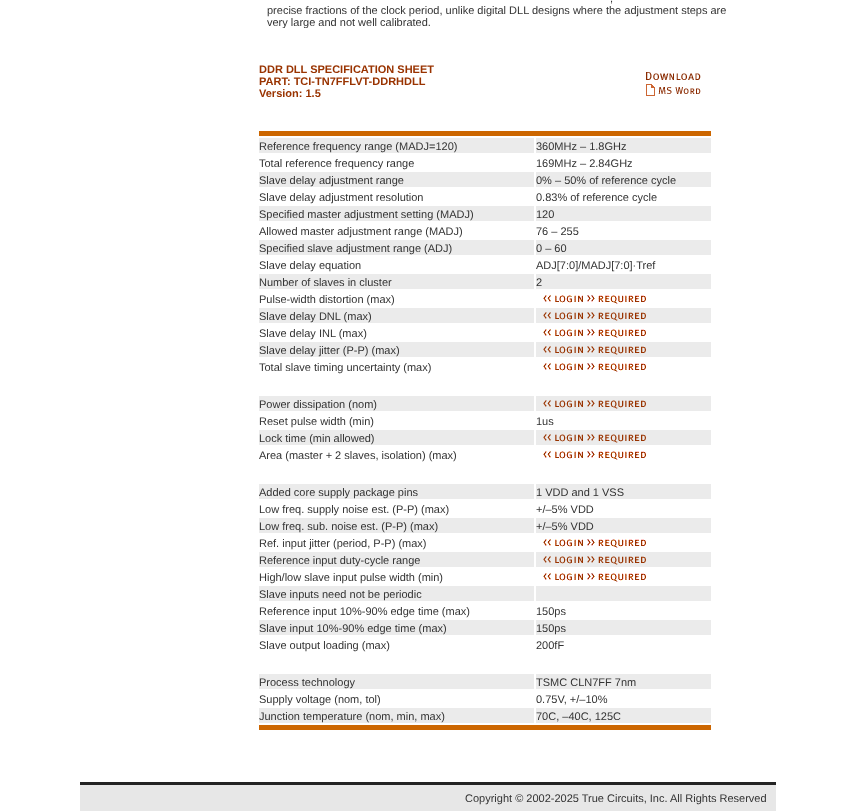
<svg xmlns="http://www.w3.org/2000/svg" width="856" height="811">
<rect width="100%" height="100%" fill="#fff"/>
<text x="610" y="2" style="font-family:Liberation Sans;font-size:11px;fill:#333">,</text>
<text x="267" y="14" style="font-family:Liberation Sans;font-size:11px;fill:#333">precise fractions of the clock period, unlike digital DLL designs where the adjustment steps are</text>
<text x="267" y="26" style="font-family:Liberation Sans;font-size:11px;fill:#333">very large and not well calibrated.</text>
<rect x="282" y="28" width="26" height="1" fill="#fff"/>
<text x="259" y="73" style="font-family:Liberation Sans;font-size:11px;font-weight:bold;fill:#930">DDR DLL SPECIFICATION SHEET</text>
<text x="259" y="85" style="font-family:Liberation Sans;font-size:11px;font-weight:bold;fill:#930">PART: TCI-TN7FFLVT-DDRHDLL</text>
<text x="259" y="97" style="font-family:Liberation Sans;font-size:11px;font-weight:bold;fill:#930">Version: 1.5</text>
<image x="646" y="72" width="55" height="24" href="media/1.png"/>
<rect x="259" y="131" width="452" height="5" fill="#c60"/>
<rect x="259" y="138" width="275" height="15" fill="#ebebeb"/>
<text x="259" y="150" style="font-family:Liberation Sans;font-size:11px;fill:#333">Reference frequency range (MADJ=120)</text>
<rect x="536" y="138" width="175" height="15" fill="#ebebeb"/>
<text x="536" y="150" style="font-family:Liberation Sans;font-size:11px;fill:#333">360MHz – 1.8GHz</text>
<text x="259" y="167" style="font-family:Liberation Sans;font-size:11px;fill:#333">Total reference frequency range</text>
<text x="536" y="167" style="font-family:Liberation Sans;font-size:11px;fill:#333">169MHz – 2.84GHz</text>
<rect x="259" y="172" width="275" height="15" fill="#ebebeb"/>
<text x="259" y="184" style="font-family:Liberation Sans;font-size:11px;fill:#333">Slave delay adjustment range</text>
<rect x="536" y="172" width="175" height="15" fill="#ebebeb"/>
<text x="536" y="184" style="font-family:Liberation Sans;font-size:11px;fill:#333">0% – 50% of reference cycle</text>
<text x="259" y="201" style="font-family:Liberation Sans;font-size:11px;fill:#333">Slave delay adjustment resolution</text>
<text x="536" y="201" style="font-family:Liberation Sans;font-size:11px;fill:#333">0.83% of reference cycle</text>
<rect x="259" y="206" width="275" height="15" fill="#ebebeb"/>
<text x="259" y="218" style="font-family:Liberation Sans;font-size:11px;fill:#333">Specified master adjustment setting (MADJ)</text>
<rect x="536" y="206" width="175" height="15" fill="#ebebeb"/>
<text x="536" y="218" style="font-family:Liberation Sans;font-size:11px;fill:#333">120</text>
<text x="259" y="235" style="font-family:Liberation Sans;font-size:11px;fill:#333">Allowed master adjustment range (MADJ)</text>
<text x="536" y="235" style="font-family:Liberation Sans;font-size:11px;fill:#333">76 – 255</text>
<rect x="259" y="240" width="275" height="15" fill="#ebebeb"/>
<text x="259" y="252" style="font-family:Liberation Sans;font-size:11px;fill:#333">Specified slave adjustment range (ADJ)</text>
<rect x="536" y="240" width="175" height="15" fill="#ebebeb"/>
<text x="536" y="252" style="font-family:Liberation Sans;font-size:11px;fill:#333">0 – 60</text>
<text x="259" y="269" style="font-family:Liberation Sans;font-size:11px;fill:#333">Slave delay equation</text>
<text x="536" y="269" style="font-family:Liberation Sans;font-size:11px;fill:#333">ADJ[7:0]/MADJ[7:0]·Tref</text>
<rect x="259" y="274" width="275" height="15" fill="#ebebeb"/>
<text x="259" y="286" style="font-family:Liberation Sans;font-size:11px;fill:#333">Number of slaves in cluster</text>
<rect x="536" y="274" width="175" height="15" fill="#ebebeb"/>
<text x="536" y="286" style="font-family:Liberation Sans;font-size:11px;fill:#333">2</text>
<text x="259" y="303" style="font-family:Liberation Sans;font-size:11px;fill:#333">Pulse-width distortion (max)</text>
<image x="543" y="295" width="103" height="9" href="media/2.png"/>
<rect x="259" y="308" width="275" height="15" fill="#ebebeb"/>
<text x="259" y="320" style="font-family:Liberation Sans;font-size:11px;fill:#333">Slave delay DNL (max)</text>
<rect x="536" y="308" width="175" height="15" fill="#ebebeb"/>
<image x="543" y="312" width="103" height="9" href="media/3.png"/>
<text x="259" y="337" style="font-family:Liberation Sans;font-size:11px;fill:#333">Slave delay INL (max)</text>
<image x="543" y="329" width="103" height="9" href="media/2.png"/>
<rect x="259" y="342" width="275" height="15" fill="#ebebeb"/>
<text x="259" y="354" style="font-family:Liberation Sans;font-size:11px;fill:#333">Slave delay jitter (P-P) (max)</text>
<rect x="536" y="342" width="175" height="15" fill="#ebebeb"/>
<image x="543" y="346" width="103" height="9" href="media/3.png"/>
<text x="259" y="371" style="font-family:Liberation Sans;font-size:11px;fill:#333">Total slave timing uncertainty (max)</text>
<image x="543" y="363" width="103" height="9" href="media/2.png"/>
<rect x="259" y="396" width="275" height="15" fill="#ebebeb"/>
<text x="259" y="408" style="font-family:Liberation Sans;font-size:11px;fill:#333">Power dissipation (nom)</text>
<rect x="536" y="396" width="175" height="15" fill="#ebebeb"/>
<image x="543" y="400" width="103" height="9" href="media/3.png"/>
<text x="259" y="425" style="font-family:Liberation Sans;font-size:11px;fill:#333">Reset pulse width (min)</text>
<text x="536" y="425" style="font-family:Liberation Sans;font-size:11px;fill:#333">1us</text>
<rect x="259" y="430" width="275" height="15" fill="#ebebeb"/>
<text x="259" y="442" style="font-family:Liberation Sans;font-size:11px;fill:#333">Lock time (min allowed)</text>
<rect x="536" y="430" width="175" height="15" fill="#ebebeb"/>
<image x="543" y="434" width="103" height="9" href="media/3.png"/>
<text x="259" y="459" style="font-family:Liberation Sans;font-size:11px;fill:#333">Area (master + 2 slaves, isolation) (max)</text>
<image x="543" y="451" width="103" height="9" href="media/2.png"/>
<rect x="259" y="484" width="275" height="15" fill="#ebebeb"/>
<text x="259" y="496" style="font-family:Liberation Sans;font-size:11px;fill:#333">Added core supply package pins</text>
<rect x="536" y="484" width="175" height="15" fill="#ebebeb"/>
<text x="536" y="496" style="font-family:Liberation Sans;font-size:11px;fill:#333">1 VDD and 1 VSS</text>
<text x="259" y="513" style="font-family:Liberation Sans;font-size:11px;fill:#333">Low freq. supply noise est. (P-P) (max)</text>
<text x="536" y="513" style="font-family:Liberation Sans;font-size:11px;fill:#333">+/–5% VDD</text>
<rect x="259" y="518" width="275" height="15" fill="#ebebeb"/>
<text x="259" y="530" style="font-family:Liberation Sans;font-size:11px;fill:#333">Low freq. sub. noise est. (P-P) (max)</text>
<rect x="536" y="518" width="175" height="15" fill="#ebebeb"/>
<text x="536" y="530" style="font-family:Liberation Sans;font-size:11px;fill:#333">+/–5% VDD</text>
<text x="259" y="547" style="font-family:Liberation Sans;font-size:11px;fill:#333">Ref. input jitter (period, P-P) (max)</text>
<image x="543" y="539" width="103" height="9" href="media/2.png"/>
<rect x="259" y="552" width="275" height="15" fill="#ebebeb"/>
<text x="259" y="564" style="font-family:Liberation Sans;font-size:11px;fill:#333">Reference input duty-cycle range</text>
<rect x="536" y="552" width="175" height="15" fill="#ebebeb"/>
<image x="543" y="556" width="103" height="9" href="media/3.png"/>
<text x="259" y="581" style="font-family:Liberation Sans;font-size:11px;fill:#333">High/low slave input pulse width (min)</text>
<image x="543" y="573" width="103" height="9" href="media/2.png"/>
<rect x="259" y="586" width="275" height="15" fill="#ebebeb"/>
<text x="259" y="598" style="font-family:Liberation Sans;font-size:11px;fill:#333">Slave inputs need not be periodic</text>
<rect x="536" y="586" width="175" height="15" fill="#ebebeb"/>
<text x="259" y="615" style="font-family:Liberation Sans;font-size:11px;fill:#333">Reference input 10%-90% edge time (max)</text>
<text x="536" y="615" style="font-family:Liberation Sans;font-size:11px;fill:#333">150ps</text>
<rect x="259" y="620" width="275" height="15" fill="#ebebeb"/>
<text x="259" y="632" style="font-family:Liberation Sans;font-size:11px;fill:#333">Slave input 10%-90% edge time (max)</text>
<rect x="536" y="620" width="175" height="15" fill="#ebebeb"/>
<text x="536" y="632" style="font-family:Liberation Sans;font-size:11px;fill:#333">150ps</text>
<text x="259" y="649" style="font-family:Liberation Sans;font-size:11px;fill:#333">Slave output loading (max)</text>
<text x="536" y="649" style="font-family:Liberation Sans;font-size:11px;fill:#333">200fF</text>
<rect x="259" y="674" width="275" height="15" fill="#ebebeb"/>
<text x="259" y="686" style="font-family:Liberation Sans;font-size:11px;fill:#333">Process technology</text>
<rect x="536" y="674" width="175" height="15" fill="#ebebeb"/>
<text x="536" y="686" style="font-family:Liberation Sans;font-size:11px;fill:#333">TSMC CLN7FF 7nm</text>
<text x="259" y="703" style="font-family:Liberation Sans;font-size:11px;fill:#333">Supply voltage (nom, tol)</text>
<text x="536" y="703" style="font-family:Liberation Sans;font-size:11px;fill:#333">0.75V, +/–10%</text>
<rect x="259" y="708" width="275" height="15" fill="#ebebeb"/>
<text x="259" y="720" style="font-family:Liberation Sans;font-size:11px;fill:#333">Junction temperature (nom, min, max)</text>
<rect x="536" y="708" width="175" height="15" fill="#ebebeb"/>
<text x="536" y="720" style="font-family:Liberation Sans;font-size:11px;fill:#333">70C, –40C, 125C</text>
<rect x="259" y="725" width="452" height="5" fill="#c60"/>
<rect x="80" y="782" width="696" height="3" fill="#232323"/>
<rect x="80" y="785" width="696" height="26" fill="#e7e7e7"/>
<text x="465" y="802" style="font-family:Liberation Sans;font-size:11px;fill:#333">Copyright © 2002-2025 True Circuits, Inc. All Rights Reserved</text>
</svg>
